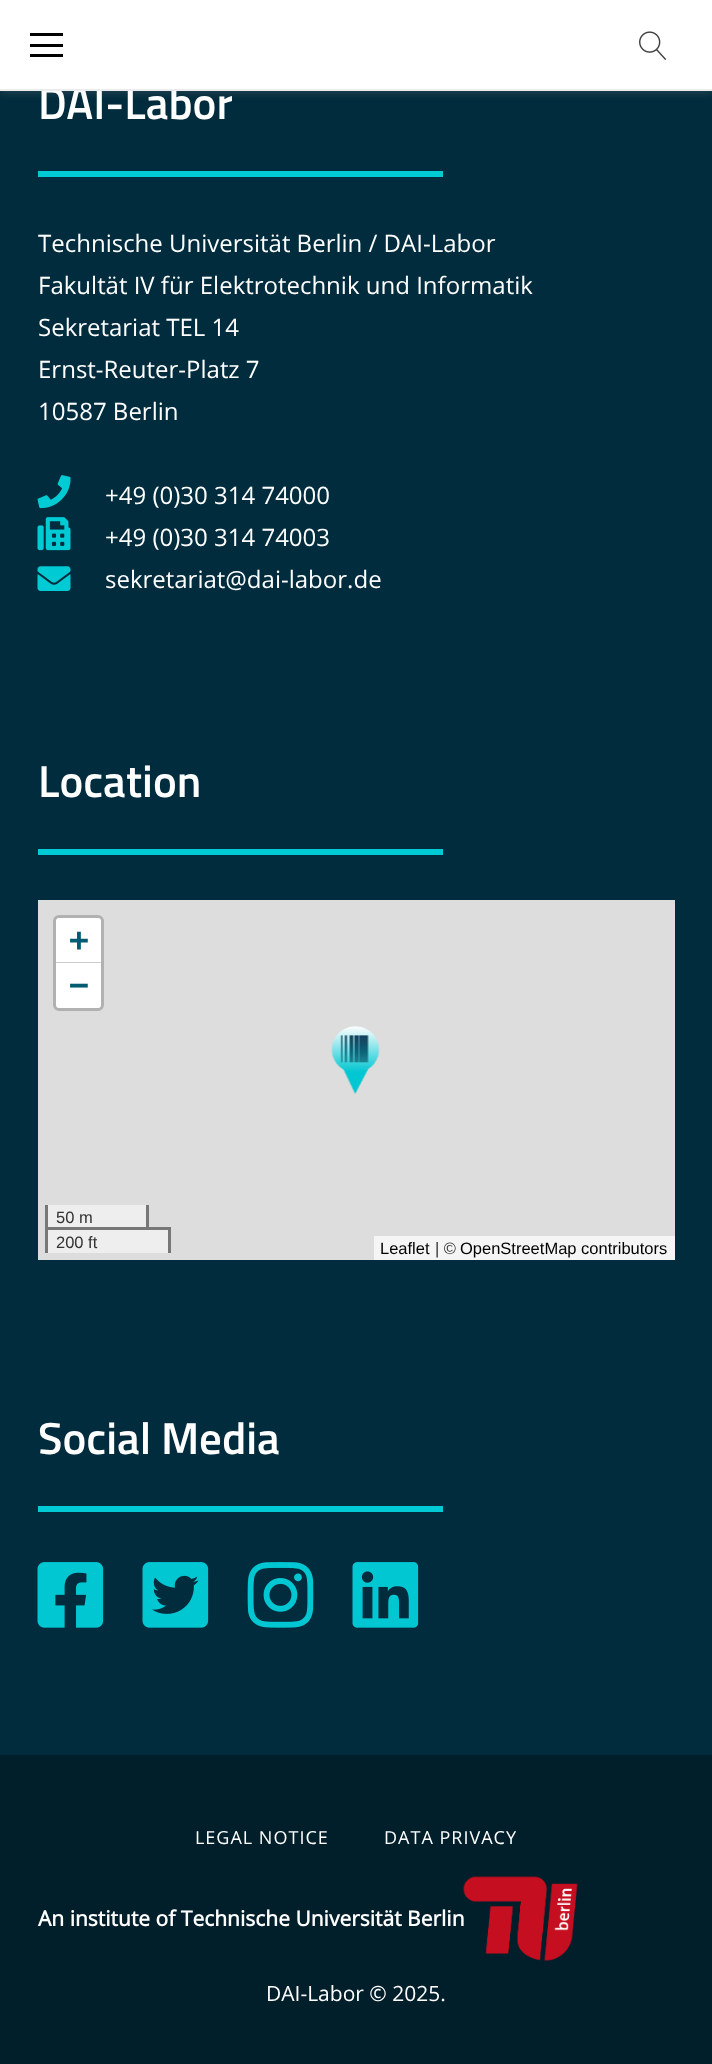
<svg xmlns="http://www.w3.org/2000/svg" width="712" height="2064">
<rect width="100%" height="100%" fill="#001f2b"/>
<rect y="91" width="712" height="1664" fill="#002c3d"/>
<rect y="3" width="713" height="90" fill="#88888842" filter="blur(4.5px)"/>
<rect width="712" height="89" fill="#fff"/>
<text x="38" y="119" style="font-family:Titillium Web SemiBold;font-size:45px;font-weight:600;fill:#fff">DAI-Labor</text>
<rect y="89" width="712" height="2" fill="#ececee"/>
<rect x="30" y="44" width="33" height="3" fill="#000"/>
<rect x="30" y="33" width="33" height="3" fill="#000"/>
<rect x="30" y="54" width="33" height="3" fill="#000"/>
<image x="639" y="31" width="27" height="29" href="media/1.png"/>
<rect x="38" y="171" width="405" height="6" fill="#00cad3"/>
<text x="38" y="252" style="font-family:Open Sans;font-size:24px;fill:#fff">Technische Universität Berlin / DAI-Labor</text>
<text x="38" y="294" style="font-family:Open Sans;font-size:24px;fill:#fff">Fakultät IV für Elektrotechnik und Informatik</text>
<text x="38" y="336" style="font-family:Open Sans;font-size:24px;fill:#fff">Sekretariat TEL 14</text>
<text x="38" y="378" style="font-family:Open Sans;font-size:24px;fill:#fff">Ernst-Reuter-Platz 7</text>
<text x="38" y="420" style="font-family:Open Sans;font-size:24px;fill:#fff">10587 Berlin</text>
<image x="37" y="475" width="34" height="34" href="media/2.png"/>
<text x="105" y="504" style="font-family:Open Sans;font-size:24px;fill:#fff">+49 (0)30 314 74000</text>
<image x="37" y="517" width="34" height="34" href="media/3.png"/>
<text x="105" y="546" style="font-family:Open Sans;font-size:24px;fill:#fff">+49 (0)30 314 74003</text>
<image x="37" y="566" width="34" height="25" href="media/4.png"/>
<text x="105" y="588" style="font-family:Open Sans;font-size:24px;fill:#fff">sekretariat@dai-labor.de</text>
<rect x="38" y="849" width="405" height="6" fill="#00cad3"/>
<text x="38" y="797" style="font-family:Titillium Web SemiBold;font-size:45px;font-weight:600;fill:#fff">Location</text>
<rect x="38" y="900" width="637" height="360" fill="#ddd"/>
<rect x="48" y="1230" width="120" height="23" fill="#eee"/>
<rect x="54.5" y="916.5" width="48" height="93" rx="4.5" fill="none" stroke="#b1b1b1" stroke-width="3"/>
<path d="M59 918h39c1.5 0 3 1.5 3 3v42h-45v-42c0-1.5 1.5-3 3-3z" fill="#fff"/>
<rect x="56" y="962" width="45" height="1" fill="#ccc"/>
<text x="69" y="951" style="font-family:DejaVu Sans Mono;font-size:33px;font-weight:bold;fill:#005c71">+</text>
<path d="M56 963h45v42c0 1.5-1.5 3-3 3h-39c-1.5 0-3-1.5-3-3z" fill="#fff"/>
<text x="69" y="996" style="font-family:DejaVu Sans Mono;font-size:33px;font-weight:bold;fill:#005c71">−</text>
<rect x="48" y="1205" width="98" height="22" fill="#eee"/>
<rect x="146" y="1205" width="3" height="25" fill="#777"/>
<rect x="45" y="1205" width="3" height="25" fill="#777"/>
<text x="56" y="1223" style="font-family:Liberation Sans;font-size:16.5px;fill:#333">50 m</text>
<rect x="45" y="1227" width="126" height="3" fill="#777"/>
<rect x="168" y="1227" width="3" height="26" fill="#777"/>
<rect x="45" y="1227" width="3" height="26" fill="#777"/>
<text x="56" y="1248" style="font-family:Liberation Sans;font-size:16.5px;fill:#333">200 ft</text>
<rect x="374" y="1236" width="301" height="24" fill="#f5f5f5"/>
<text x="380" y="1254" style="font-family:Liberation Sans;font-size:16.5px;fill:#000">Leaflet</text>
<text x="435" y="1254" style="font-family:Liberation Sans;font-size:16.5px;fill:#333">| ©</text>
<text x="460" y="1254" style="font-family:Liberation Sans;font-size:16.5px;fill:#000">OpenStreetMap contributors</text>
<image x="331" y="1026" width="49" height="68" href="media/5.png"/>
<rect x="38" y="1506" width="405" height="6" fill="#00cad3"/>
<text x="38" y="1454" style="font-family:Titillium Web SemiBold;font-size:45px;font-weight:600;fill:#fff">Social Media</text>
<image x="37" y="1562" width="67" height="66" href="media/6.png"/>
<image x="142" y="1562" width="67" height="66" href="media/7.png"/>
<image x="247" y="1562" width="67" height="66" href="media/8.png"/>
<image x="352" y="1562" width="67" height="66" href="media/9.png"/>
<text x="195" y="1844" style="font-family:Open Sans;font-size:18px;letter-spacing:1px;fill:#fff">LEGAL NOTICE</text>
<text x="384" y="1844" style="font-family:Open Sans;font-size:18px;letter-spacing:1px;fill:#fff">DATA PRIVACY</text>
<text x="38" y="1926" style="font-family:Open Sans;font-size:21px;font-weight:bold;fill:#fff">An institute of Technische Universität Berlin</text>
<image x="463" y="1876" width="115" height="85" href="media/10.png"/>
<text x="266" y="2001" style="font-family:Open Sans;font-size:21px;fill:#fff">DAI-Labor © 2025.</text>
</svg>
